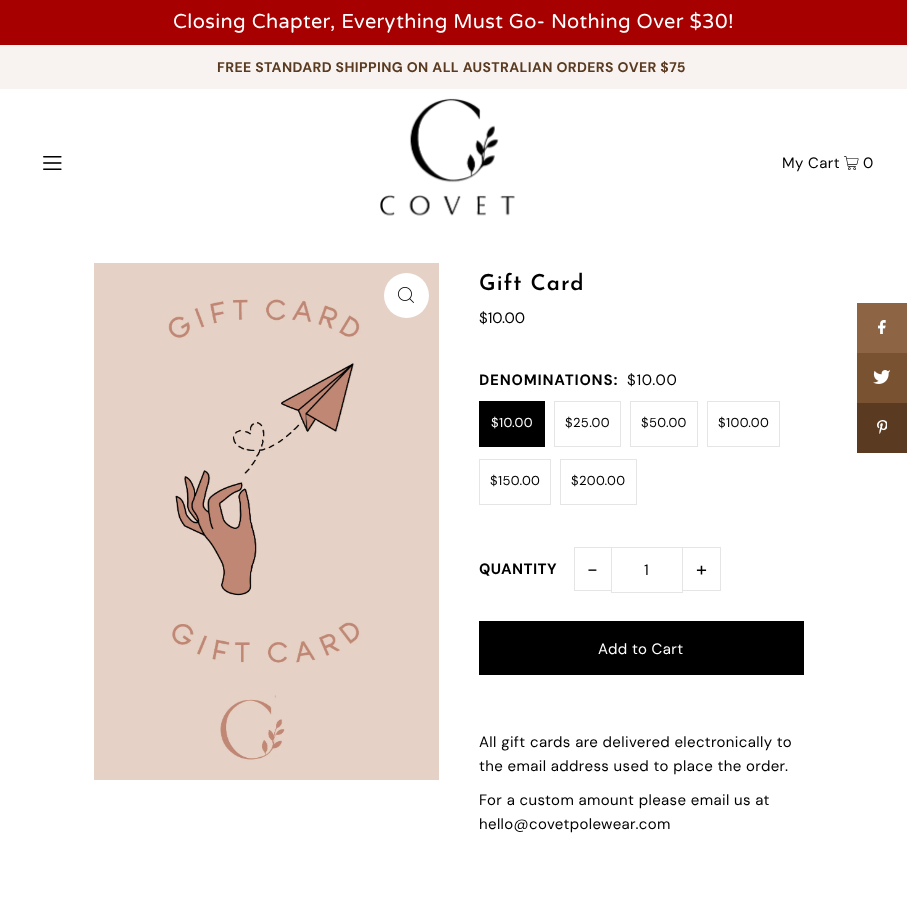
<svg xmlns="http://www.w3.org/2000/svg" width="907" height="904">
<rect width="100%" height="100%" fill="#fff"/>
<rect width="907" height="45" fill="#a60000"/>
<text x="173" y="28" style="font-family:Varela Round;font-size:20px;letter-spacing:0.38px;fill:#fff">Closing Chapter, Everything Must Go- Nothing Over $30!</text>
<rect y="45" width="907" height="44" fill="#f8f3f0"/>
<text x="217" y="72" style="font-family:'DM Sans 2';font-size:14px;font-weight:bold;letter-spacing:0.38px;fill:#5a3b21">FREE STANDARD SHIPPING ON ALL AUSTRALIAN ORDERS OVER $75</text>
<image x="43" y="156" width="19" height="14" href="media/1.png"/>
<image x="380" y="98" width="135" height="118" href="media/2.png"/>
<text x="782" y="168" style="font-family:DM Sans;font-size:15px;letter-spacing:0.38px;fill:#000">My Cart</text>
<image x="844" y="156" width="15" height="14" href="media/3.png"/>
<text x="863" y="168" style="font-family:DM Sans;font-size:15px;letter-spacing:0.38px;fill:#000">0</text>
<image x="94" y="263" width="345" height="517" href="media/4.png"/>
<circle cx="406.5" cy="295.5" r="22.5" fill="#fff"/>
<image x="398" y="287" width="16" height="16" href="media/5.png"/>
<text x="479" y="290" style="font-family:Josefin Sans;font-size:22px;font-weight:600;letter-spacing:1px;fill:#000">Gift Card</text>
<text x="479" y="323" style="font-family:DM Sans;font-size:15px;fill:#000">$10.00</text>
<text x="479" y="385" style="font-family:DM Sans;font-size:15px;font-weight:bold;letter-spacing:0.75px;fill:#000">DENOMINATIONS:</text>
<text x="627" y="385" style="font-family:DM Sans;font-size:15px;letter-spacing:0.75px;fill:#000">$10.00</text>
<rect x="479" y="401" width="66" height="46" fill="#000"/>
<text x="491" y="427" style="font-family:'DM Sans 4';font-size:13px;letter-spacing:0.38px;fill:#fff">$10.00</text>
<rect x="554.5" y="401.5" width="66" height="45" fill="none" stroke="#e5e5e5"/>
<text x="565" y="427" style="font-family:'DM Sans 4';font-size:13px;letter-spacing:0.38px;fill:#000">$25.00</text>
<rect x="630.5" y="401.5" width="67" height="45" fill="none" stroke="#e5e5e5"/>
<text x="641" y="427" style="font-family:'DM Sans 4';font-size:13px;letter-spacing:0.38px;fill:#000">$50.00</text>
<rect x="707.5" y="401.5" width="72" height="45" fill="none" stroke="#e5e5e5"/>
<text x="718" y="427" style="font-family:'DM Sans 4';font-size:13px;letter-spacing:0.38px;fill:#000">$100.00</text>
<rect x="479.5" y="459.5" width="71" height="45" fill="none" stroke="#e5e5e5"/>
<text x="490" y="485" style="font-family:'DM Sans 4';font-size:13px;letter-spacing:0.38px;fill:#000">$150.00</text>
<rect x="560.5" y="459.5" width="76" height="45" fill="none" stroke="#e5e5e5"/>
<text x="571" y="485" style="font-family:'DM Sans 4';font-size:13px;letter-spacing:0.38px;fill:#000">$200.00</text>
<text x="479" y="574" style="font-family:DM Sans;font-size:15px;font-weight:bold;letter-spacing:0.38px;fill:#000">QUANTITY</text>
<rect x="574" y="547" width="38" height="1" fill="#e5e5e5"/>
<rect x="574" y="590" width="38" height="1" fill="#e5e5e5"/>
<rect x="574" y="547" width="1" height="44" fill="#e5e5e5"/>
<text x="587" y="576" style="font-family:'DM Sans 2';font-size:20px;fill:#000">-</text>
<rect x="611.5" y="547.5" width="71" height="45" fill="none" stroke="#e5e5e5"/>
<text x="644" y="575" style="font-family:DM Sans;font-size:15px;letter-spacing:0.38px;fill:#000">1</text>
<rect x="683" y="547" width="38" height="1" fill="#e5e5e5"/>
<rect x="720" y="547" width="1" height="44" fill="#e5e5e5"/>
<rect x="683" y="590" width="38" height="1" fill="#e5e5e5"/>
<text x="696" y="576" style="font-family:'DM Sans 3';font-size:20px;fill:#000">+</text>
<rect x="479" y="621" width="325" height="54" fill="#000"/>
<text x="598" y="654" style="font-family:DM Sans;font-size:15px;letter-spacing:0.38px;fill:#fff">Add to Cart</text>
<text x="479" y="747" style="font-family:DM Sans;font-size:15px;letter-spacing:0.38px;fill:#000">All gift cards are delivered electronically to</text>
<text x="479" y="771" style="font-family:DM Sans;font-size:15px;letter-spacing:0.38px;fill:#000">the email address used to place the order.</text>
<text x="479" y="805" style="font-family:DM Sans;font-size:15px;letter-spacing:0.38px;fill:#000">For a custom amount please email us at</text>
<text x="479" y="829" style="font-family:DM Sans;font-size:15px;letter-spacing:0.38px;fill:#000">hello@covetpolewear.com</text>
<rect x="857" y="303" width="50" height="50" fill="#8d6544"/>
<image x="878" y="320" width="8" height="14" href="media/6.png"/>
<rect x="857" y="353" width="50" height="50" fill="#795232"/>
<image x="873" y="370" width="17" height="14" href="media/7.png"/>
<rect x="857" y="403" width="50" height="50" fill="#5a3b21"/>
<image x="877" y="420" width="10" height="14" href="media/8.png"/>
</svg>
